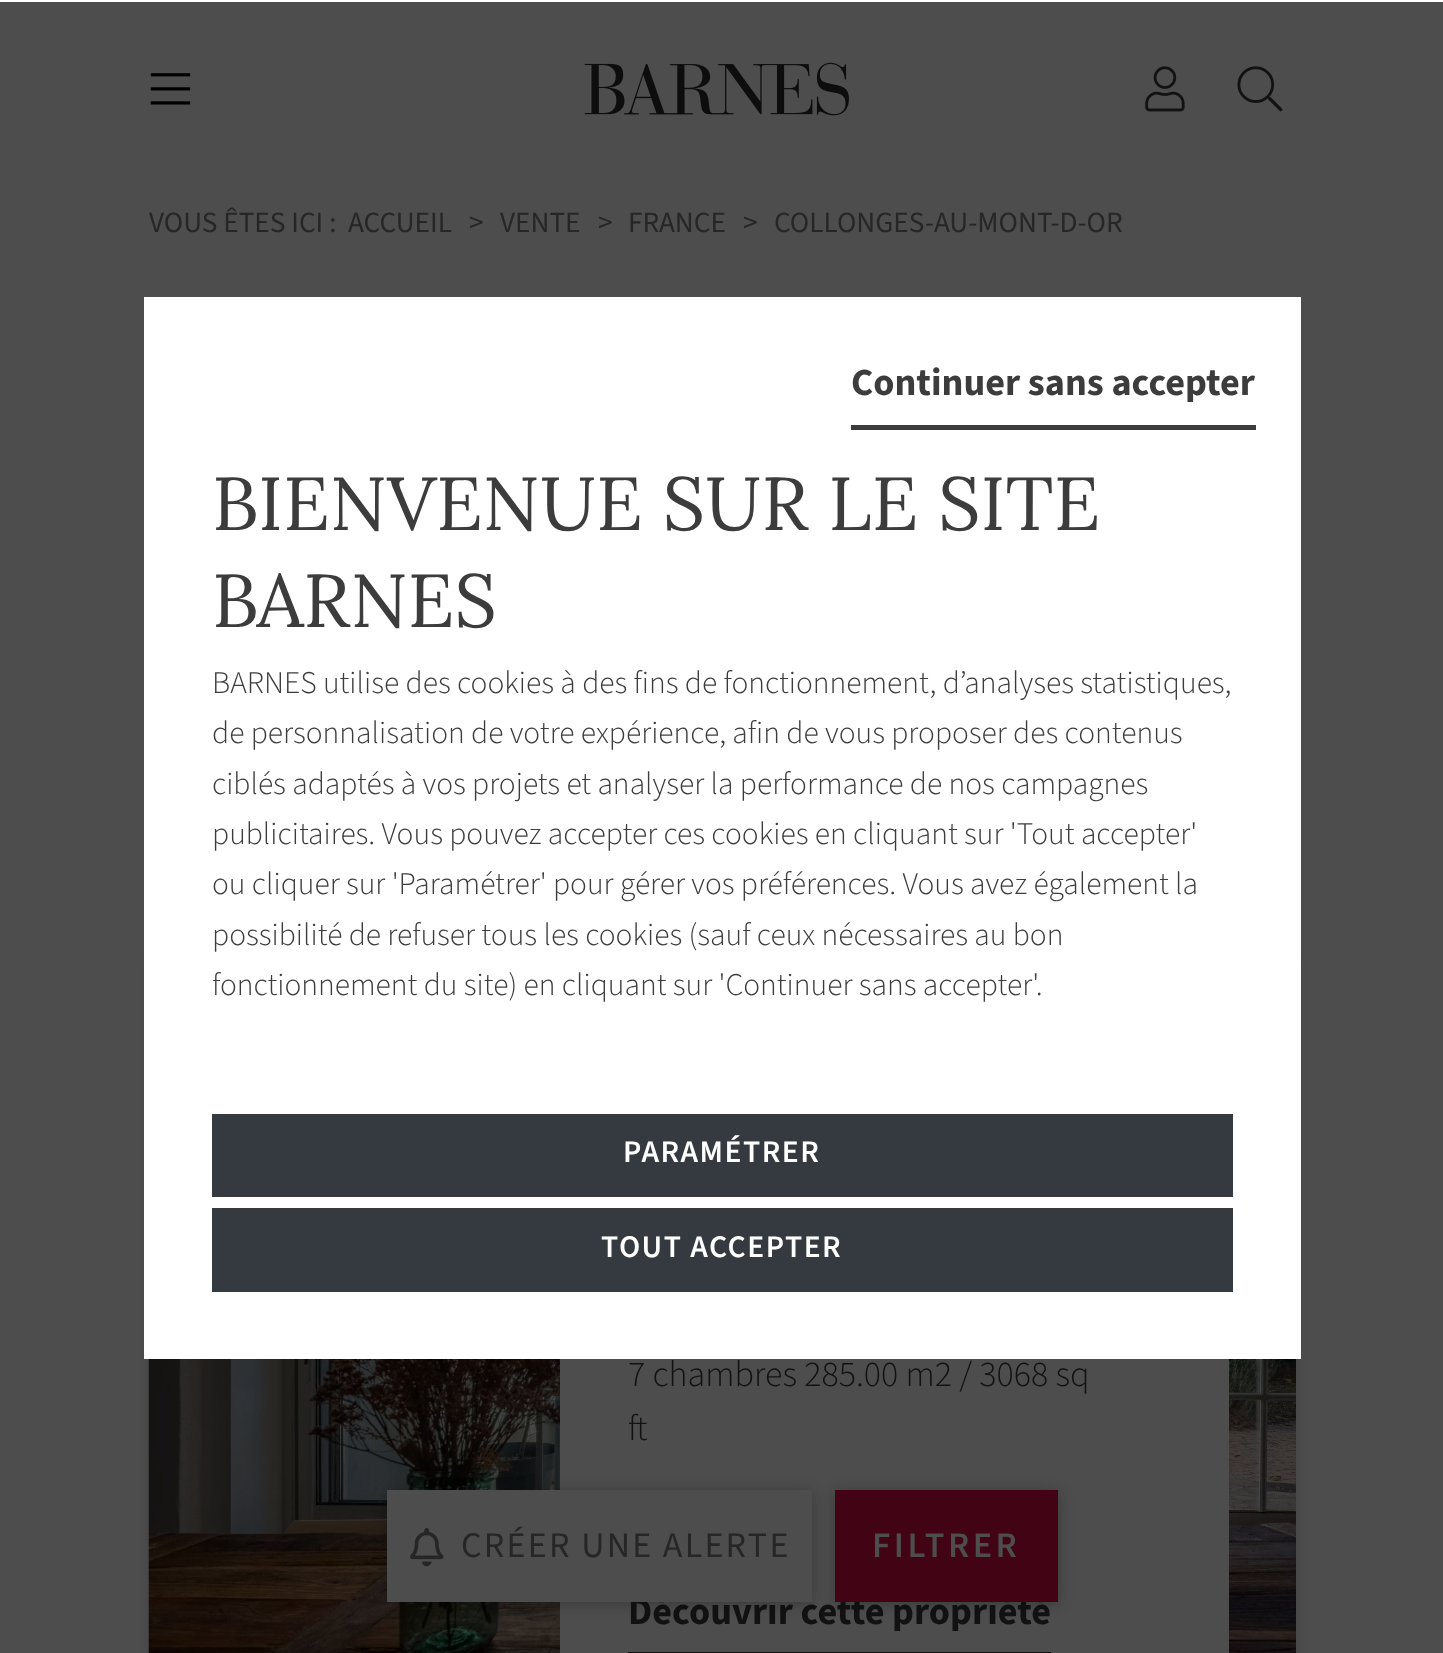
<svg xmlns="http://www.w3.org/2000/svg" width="1443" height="1653">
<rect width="100%" height="100%" fill="#4d4d4d"/>
<rect width="1443" height="2" fill="#fff"/>
<image x="584" y="62" width="265" height="54" href="media/1.png"/>
<image x="150" y="73" width="41" height="32" href="media/2.png"/>
<image x="1237" y="66" width="46" height="46" href="media/3.png"/>
<image x="1145" y="66" width="40" height="46" href="media/4.png"/>
<text x="149" y="232" style="font-family:'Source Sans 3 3';font-size:29.25px;font-weight:200;fill:#262626">VOUS ÊTES ICI :</text>
<text x="348" y="232" style="font-family:'Source Sans 3 3';font-size:29.25px;font-weight:200;fill:#262626">ACCUEIL</text>
<text x="469" y="232" style="font-family:'Source Sans 3 3';font-size:29.25px;font-weight:200;fill:#262626">&gt;</text>
<text x="500" y="232" style="font-family:'Source Sans 3 3';font-size:29.25px;font-weight:200;fill:#262626">VENTE</text>
<text x="598" y="232" style="font-family:'Source Sans 3 3';font-size:29.25px;font-weight:200;fill:#262626">&gt;</text>
<text x="628" y="232" style="font-family:'Source Sans 3 3';font-size:29.25px;font-weight:200;fill:#262626">FRANCE</text>
<text x="743" y="232" style="font-family:'Source Sans 3 3';font-size:29.25px;font-weight:200;fill:#262626">&gt;</text>
<text x="774" y="232" style="font-family:'Source Sans 3 3';font-size:29.25px;font-weight:200;fill:#262626">COLLONGES-AU-MONT-D-OR</text>
<rect x="149" y="961" width="1147" height="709" fill="#00000026" filter="blur(5.5px)"/>
<image x="148" y="1359" width="1148" height="294" href="media/5.png"/>
<rect x="560" y="1359" width="669" height="294" fill="#4d4d4d"/>
<text x="628" y="1386" style="font-family:'Source Sans 3';font-size:36px;font-weight:200;fill:#121212">7 chambres 285.00 m2 / 3068 sq</text>
<text x="628" y="1440" style="font-family:'Source Sans 3';font-size:36px;font-weight:200;fill:#121212">ft</text>
<text x="628" y="1624" style="font-family:'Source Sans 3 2';font-size:38.25px;font-weight:200;fill:#121212">Découvrir cette propriété</text>
<rect x="628" y="1652" width="423" height="1" fill="#121212"/>
<rect x="387" y="1492" width="425" height="112" fill="#00000042" filter="blur(7px)"/>
<rect x="387" y="1490" width="425" height="112" fill="#4d4d4d"/>
<image x="410" y="1528" width="34" height="39" href="media/6.png"/>
<text x="461" y="1557" style="font-family:'Source Sans 3 3';font-size:36px;font-weight:200;letter-spacing:2.25px;fill:#262626">CRÉER UNE ALERTE</text>
<rect x="835" y="1492" width="223" height="112" fill="#00000042" filter="blur(7px)"/>
<rect x="835" y="1490" width="223" height="112" fill="#420414"/>
<text x="872" y="1557" style="font-family:'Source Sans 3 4';font-size:36px;font-weight:200;letter-spacing:3.5px;fill:#4d4d4d">FILTRER</text>
<rect x="144" y="297" width="1157" height="1062" fill="#fff"/>
<text x="851" y="395" style="font-family:'Source Sans 3 2';font-size:38.25px;font-weight:200;fill:#3c3c3c">Continuer sans accepter</text>
<rect x="851" y="425" width="405" height="5" fill="#3c3c3c"/>
<text x="212" y="530" style="font-family:Lora;font-size:75px;fill:#3c3c3c">BIENVENUE SUR LE SITE</text>
<text x="212" y="627" style="font-family:Lora;font-size:75px;fill:#3c3c3c">BARNES</text>
<text x="212" y="693" style="font-family:'Source Sans 3';font-size:31.5px;font-weight:200;fill:#3c3c3c">BARNES utilise des cookies à des fins de fonctionnement, d’analyses statistiques,</text>
<text x="212" y="743" style="font-family:'Source Sans 3';font-size:31.5px;font-weight:200;fill:#3c3c3c">de personnalisation de votre expérience, afin de vous proposer des contenus</text>
<text x="212" y="794" style="font-family:'Source Sans 3';font-size:31.5px;font-weight:200;fill:#3c3c3c">ciblés adaptés à vos projets et analyser la performance de nos campagnes</text>
<text x="212" y="844" style="font-family:'Source Sans 3';font-size:31.5px;font-weight:200;fill:#3c3c3c">publicitaires. Vous pouvez accepter ces cookies en cliquant sur 'Tout accepter'</text>
<text x="212" y="894" style="font-family:'Source Sans 3';font-size:31.5px;font-weight:200;fill:#3c3c3c">ou cliquer sur 'Paramétrer' pour gérer vos préférences. Vous avez également la</text>
<text x="212" y="945" style="font-family:'Source Sans 3';font-size:31.5px;font-weight:200;fill:#3c3c3c">possibilité de refuser tous les cookies (sauf ceux nécessaires au bon</text>
<text x="212" y="995" style="font-family:'Source Sans 3';font-size:31.5px;font-weight:200;fill:#3c3c3c">fonctionnement du site) en cliquant sur 'Continuer sans accepter'.</text>
<rect x="212" y="1114" width="1021" height="83" fill="#343a40"/>
<text x="623" y="1162" style="font-family:'Source Sans 3 4';font-size:31.5px;font-weight:200;letter-spacing:1.5px;fill:#fff">PARAMÉTRER</text>
<rect x="212" y="1208" width="1021" height="84" fill="#343a40"/>
<text x="601" y="1257" style="font-family:'Source Sans 3 4';font-size:31.5px;font-weight:200;letter-spacing:1.5px;fill:#fff">TOUT ACCEPTER</text>
</svg>
